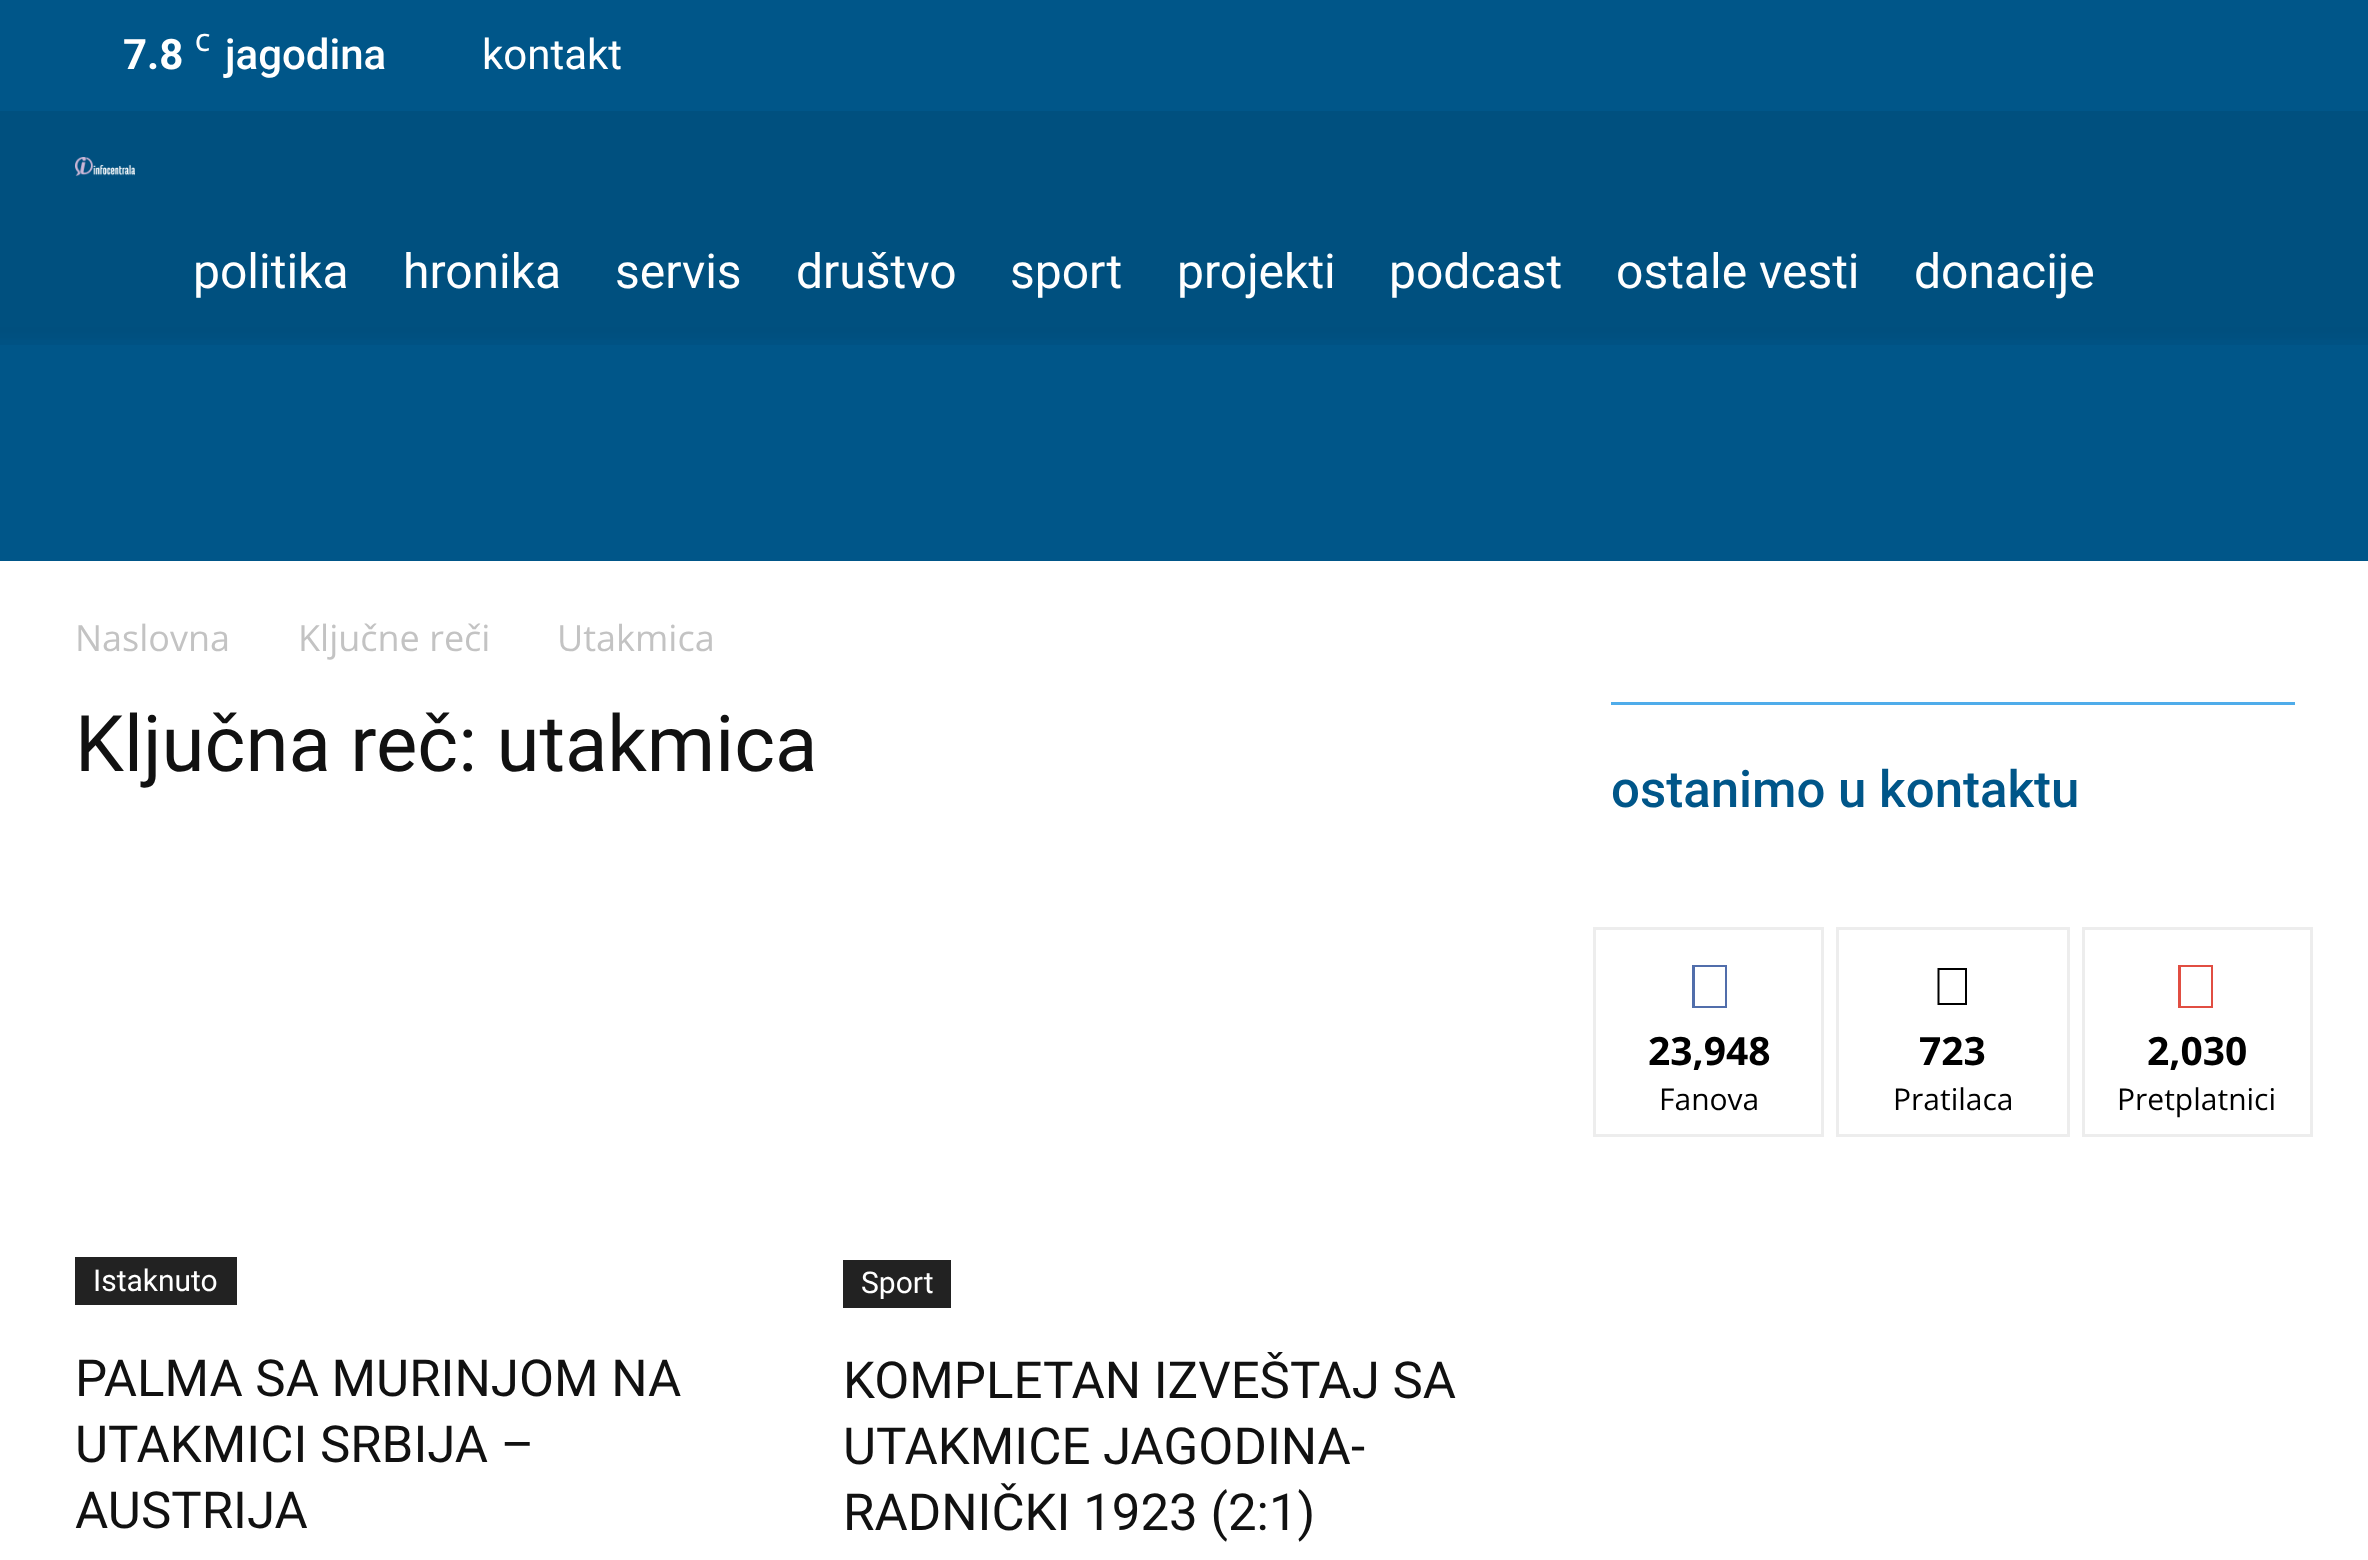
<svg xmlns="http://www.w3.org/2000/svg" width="2368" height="1560">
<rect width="100%" height="100%" fill="#fff"/>
<rect width="2368" height="111" fill="#005689"/>
<text x="123" y="69" style="font-family:Roboto;font-size:42px;font-weight:bold;fill:#fff">7.8</text>
<text x="195" y="51" style="font-family:Open Sans;font-size:24px;font-weight:600;fill:#fff">C</text>
<text x="225" y="69" style="font-family:Roboto;font-size:42px;font-weight:500;fill:#fff">jagodina</text>
<text x="482" y="69" style="font-family:Roboto;font-size:42px;fill:#fff">kontakt</text>
<rect y="111" width="2368" height="216" fill="#00507f"/>
<image x="75" y="157" width="60" height="20" href="media/1.png"/>
<text x="193" y="288" style="font-family:Roboto;font-size:48px;fill:#fff">politika</text>
<text x="403" y="288" style="font-family:Roboto;font-size:48px;fill:#fff">hronika</text>
<text x="615" y="288" style="font-family:Roboto;font-size:48px;fill:#fff">servis</text>
<text x="796" y="288" style="font-family:Roboto;font-size:48px;fill:#fff">društvo</text>
<text x="1010" y="288" style="font-family:Roboto;font-size:48px;fill:#fff">sport</text>
<text x="1177" y="288" style="font-family:Roboto;font-size:48px;fill:#fff">projekti</text>
<text x="1389" y="288" style="font-family:Roboto;font-size:48px;fill:#fff">podcast</text>
<text x="1616" y="288" style="font-family:Roboto;font-size:48px;fill:#fff">ostale vesti</text>
<text x="1914" y="288" style="font-family:Roboto;font-size:48px;fill:#fff">donacije</text>
<rect y="327" width="2368" height="234" fill="#005689"/>
<image x="0" y="327" width="2368" height="18" href="media/2.png"/>
<text x="75" y="651" style="font-family:Open Sans;font-size:36px;fill:#c3c3c3">Naslovna</text>
<text x="298" y="651" style="font-family:Open Sans;font-size:36px;fill:#c3c3c3">Ključne reči</text>
<text x="557" y="651" style="font-family:Open Sans;font-size:36px;fill:#c3c3c3">Utakmica</text>
<text x="75" y="771" style="font-family:Roboto;font-size:78px;fill:#111">Ključna reč: utakmica</text>
<rect x="75" y="1257" width="162" height="48" fill="#222"/>
<text x="93" y="1291" style="font-family:Roboto;font-size:30px;fill:#fff">Istaknuto</text>
<text x="75" y="1396" style="font-family:Roboto;font-size:51px;fill:#111">PALMA SA MURINJOM NA</text>
<text x="75" y="1462" style="font-family:Roboto;font-size:51px;fill:#111">UTAKMICI SRBIJA –</text>
<text x="75" y="1528" style="font-family:Roboto;font-size:51px;fill:#111">AUSTRIJA</text>
<rect x="843" y="1260" width="108" height="48" fill="#222"/>
<text x="861" y="1293" style="font-family:Roboto;font-size:30px;fill:#fff">Sport</text>
<text x="843" y="1398" style="font-family:Roboto;font-size:51px;fill:#111">KOMPLETAN IZVEŠTAJ SA</text>
<text x="843" y="1464" style="font-family:Roboto;font-size:51px;fill:#111">UTAKMICE JAGODINA-</text>
<text x="843" y="1530" style="font-family:Roboto;font-size:51px;fill:#111">RADNIČKI 1923 (2:1)</text>
<rect x="1611" y="702" width="684" height="3" fill="#4facea"/>
<text x="1611" y="807" style="font-family:Roboto;font-size:51px;font-weight:500;fill:#005689">ostanimo u kontaktu</text>
<rect x="1594.5" y="928.5" width="228" height="207" fill="none" stroke="#ededed" stroke-width="3"/>
<path d="M1692 965h35v43h-35zm3 2v39h30v-39z" fill="#516eab"/>
<text x="1648" y="1065" style="font-family:Open Sans;font-size:39px;font-weight:bold;fill:#000">23,948</text>
<text x="1659" y="1110" style="font-family:Open Sans;font-size:30px;fill:#000">Fanova</text>
<rect x="1837.5" y="928.5" width="231" height="207" fill="none" stroke="#ededed" stroke-width="3"/>
<path d="M1937.5 968h29.5v37h-29.5zm2 2v33h25.5v-33z" fill="#000"/>
<text x="1919" y="1065" style="font-family:Open Sans;font-size:39px;font-weight:bold;fill:#000">723</text>
<text x="1893" y="1110" style="font-family:Open Sans;font-size:30px;fill:#000">Pratilaca</text>
<rect x="2083.5" y="928.5" width="228" height="207" fill="none" stroke="#ededed" stroke-width="3"/>
<path d="M2178 965h35v43h-35zm3 2v39h30v-39z" fill="#e14e42"/>
<text x="2147" y="1065" style="font-family:Open Sans;font-size:39px;font-weight:bold;fill:#000">2,030</text>
<text x="2117" y="1110" style="font-family:Open Sans;font-size:30px;fill:#000">Pretplatnici</text>
</svg>
